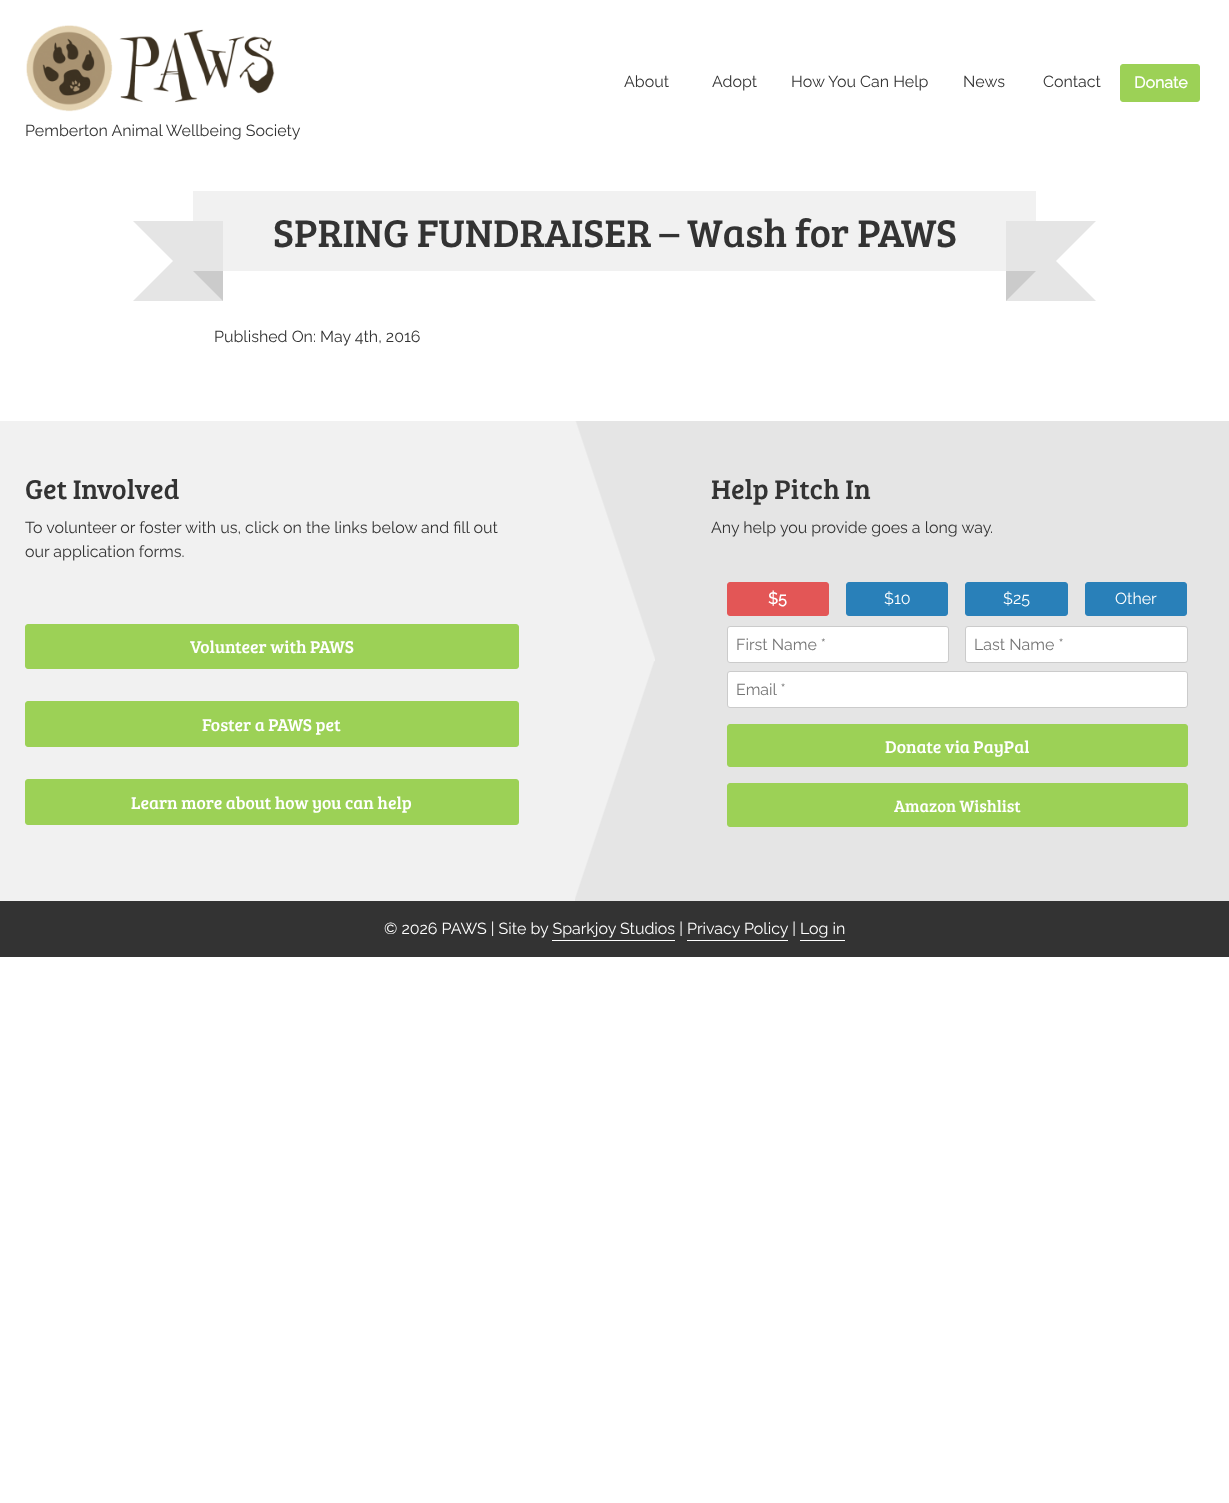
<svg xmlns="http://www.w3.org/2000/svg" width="1229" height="1503">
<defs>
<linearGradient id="g1" gradientUnits="userSpaceOnUse" x1="0" y1="661" x2="1229" y2="661"><stop offset="0" stop-color="#f1f1f1"/><stop offset="0.49" stop-color="#f1f1f1"/><stop offset="0.5" stop-color="#e5e5e5"/><stop offset="1" stop-color="#e5e5e5"/></linearGradient>
<linearGradient id="g2" gradientUnits="userSpaceOnUse" x1="687" y1="517" x2="543" y2="565"><stop offset="0.49" stop-color="#e5e5e5"/><stop offset="0.5" stop-color="#f1f1f1"/></linearGradient>
<linearGradient id="g3" gradientUnits="userSpaceOnUse" x1="543" y1="757" x2="687" y2="805"><stop offset="0.49" stop-color="#f1f1f1"/><stop offset="0.5" stop-color="#e5e5e5"/></linearGradient>
</defs>
<rect width="100%" height="100%" fill="#fff"/>
<text x="624" y="87" style="font-family:Raleway;font-size:16px;font-weight:100;fill:#333">About</text>
<text x="712" y="87" style="font-family:Raleway;font-size:16px;font-weight:100;fill:#333">Adopt</text>
<text x="791" y="87" style="font-family:Raleway;font-size:16px;font-weight:100;fill:#333">How You Can Help</text>
<text x="963" y="87" style="font-family:Raleway;font-size:16px;font-weight:100;fill:#333">News</text>
<text x="1043" y="87" style="font-family:Raleway;font-size:16px;font-weight:100;fill:#333">Contact</text>
<rect x="1120.5" y="64.5" width="79" height="37" rx="2.5" fill="#9cd156" stroke="#9cd156"/>
<text x="1134" y="88" style="font-family:Raleway;font-size:16px;font-weight:bold;fill:#fff">Donate</text>
<image x="26" y="25" width="249" height="87" href="media/1.png"/>
<text x="25" y="136" style="font-family:Raleway;font-size:16px;font-weight:100;fill:#333">Pemberton Animal Wellbeing Society</text>
<rect x="193" y="191" width="843" height="80" fill="#f1f1f1"/>
<path d="M133 221h90l-40 40h-10z" fill="#e5e5e5"/>
<rect x="183" y="221" width="40" height="80" fill="#e5e5e5"/>
<path d="M223 301h-90l40-40h10z" fill="#e5e5e5"/>
<text x="273" y="247" style="font-family:Bree Serif;font-size:40px;fill:#333">SPRING FUNDRAISER – Wash for PAWS</text>
<path d="M193 271h30v30z" fill="#cbcbcb"/>
<path d="M1096 301h-90l40-40h10z" fill="#e5e5e5"/>
<path d="M1006 221h90l-40 40h-10z" fill="#e5e5e5"/>
<rect x="1006" y="221" width="40" height="80" fill="#e5e5e5"/>
<path d="M1006 271h30l-30 30z" fill="#cbcbcb"/>
<text x="214" y="342" style="font-family:Raleway;font-size:16px;font-weight:100;fill:#333">Published On: May 4th, 2016</text>
<rect y="901" width="1229" height="56" fill="#333"/>
<rect y="421" width="1229" height="480" fill="url(#g1)"/>
<text x="25" y="499" style="font-family:Bree Serif;font-size:28px;fill:#333">Get Involved</text>
<text x="25" y="533" style="font-family:Raleway;font-size:16px;font-weight:100;fill:#333">To volunteer or foster with us, click on the links below and fill out</text>
<text x="25" y="557" style="font-family:Raleway;font-size:16px;font-weight:100;fill:#333">our application forms.</text>
<rect x="25.5" y="624.5" width="493" height="44" rx="2.5" fill="#9cd156" stroke="#9cd156"/>
<text x="190" y="653" style="font-family:Bree Serif;font-size:17.6px;fill:#fff">Volunteer with PAWS</text>
<rect x="25.5" y="701.5" width="493" height="45" rx="2.5" fill="#9cd156" stroke="#9cd156"/>
<text x="202" y="731" style="font-family:Bree Serif;font-size:17.6px;fill:#fff">Foster a PAWS pet</text>
<rect x="25.5" y="779.5" width="493" height="45" rx="2.5" fill="#9cd156" stroke="#9cd156"/>
<text x="131" y="809" style="font-family:Bree Serif;font-size:17.6px;fill:#fff">Learn more about how you can help</text>
<rect x="575" y="421" width="80" height="240" fill="url(#g2)"/>
<rect x="575" y="661" width="80" height="240" fill="url(#g3)"/>
<text x="711" y="499" style="font-family:Bree Serif;font-size:28px;fill:#333">Help Pitch In</text>
<text x="711" y="533" style="font-family:Raleway;font-size:16px;font-weight:100;fill:#333">Any help you provide goes a long way.</text>
<rect x="727.5" y="582.5" width="101" height="33" rx="2.5" fill="#e35656" stroke="#e35656"/>
<text x="768" y="604" style="font-family:Raleway;font-size:16px;font-weight:bold;fill:#fff">$5</text>
<rect x="846.5" y="582.5" width="101" height="33" rx="2.5" fill="#2980b9" stroke="#2980b9"/>
<text x="884" y="604" style="font-family:Raleway;font-size:16px;font-weight:100;fill:#fff">$10</text>
<rect x="965.5" y="582.5" width="102" height="33" rx="2.5" fill="#2980b9" stroke="#2980b9"/>
<text x="1003" y="604" style="font-family:Raleway;font-size:16px;font-weight:100;fill:#fff">$25</text>
<rect x="1085.5" y="582.5" width="101" height="33" rx="2.5" fill="#2980b9" stroke="#2980b9"/>
<text x="1115" y="604" style="font-family:Raleway;font-size:16px;font-weight:100;fill:#fff">Other</text>
<rect x="727.5" y="626.5" width="221" height="36" rx="2.5" fill="#fff" stroke="#cbcbcb"/>
<text x="736" y="650" style="font-family:Raleway;font-size:16px;font-weight:100;fill:#757575">First Name *</text>
<rect x="965.5" y="626.5" width="222" height="36" rx="2.5" fill="#fff" stroke="#cbcbcb"/>
<text x="974" y="650" style="font-family:Raleway;font-size:16px;font-weight:100;fill:#757575">Last Name *</text>
<rect x="727.5" y="671.5" width="460" height="36" rx="2.5" fill="#fff" stroke="#cbcbcb"/>
<text x="736" y="695" style="font-family:Raleway;font-size:16px;font-weight:100;fill:#757575">Email *</text>
<rect x="727.5" y="724.5" width="460" height="42" rx="2.5" fill="#9cd156" stroke="#9cd156"/>
<text x="885" y="753" style="font-family:Bree Serif;font-size:17.6px;fill:#fff">Donate via PayPal</text>
<rect x="727.5" y="783.5" width="460" height="43" rx="2.5" fill="#9cd156" stroke="#9cd156"/>
<text x="894" y="812" style="font-family:Bree Serif;font-size:16.75px;fill:#fff">Amazon Wishlist</text>
<text x="384" y="934" style="font-family:Raleway;font-size:16px;font-weight:100;fill:#fff">© 2026 PAWS | Site by Sparkjoy Studios | Privacy Policy | Log in</text>
<rect x="552" y="940" width="123" height="1" fill="#fff"/>
<rect x="687" y="940" width="101" height="1" fill="#fff"/>
<rect x="800" y="940" width="45" height="1" fill="#fff"/>
</svg>
